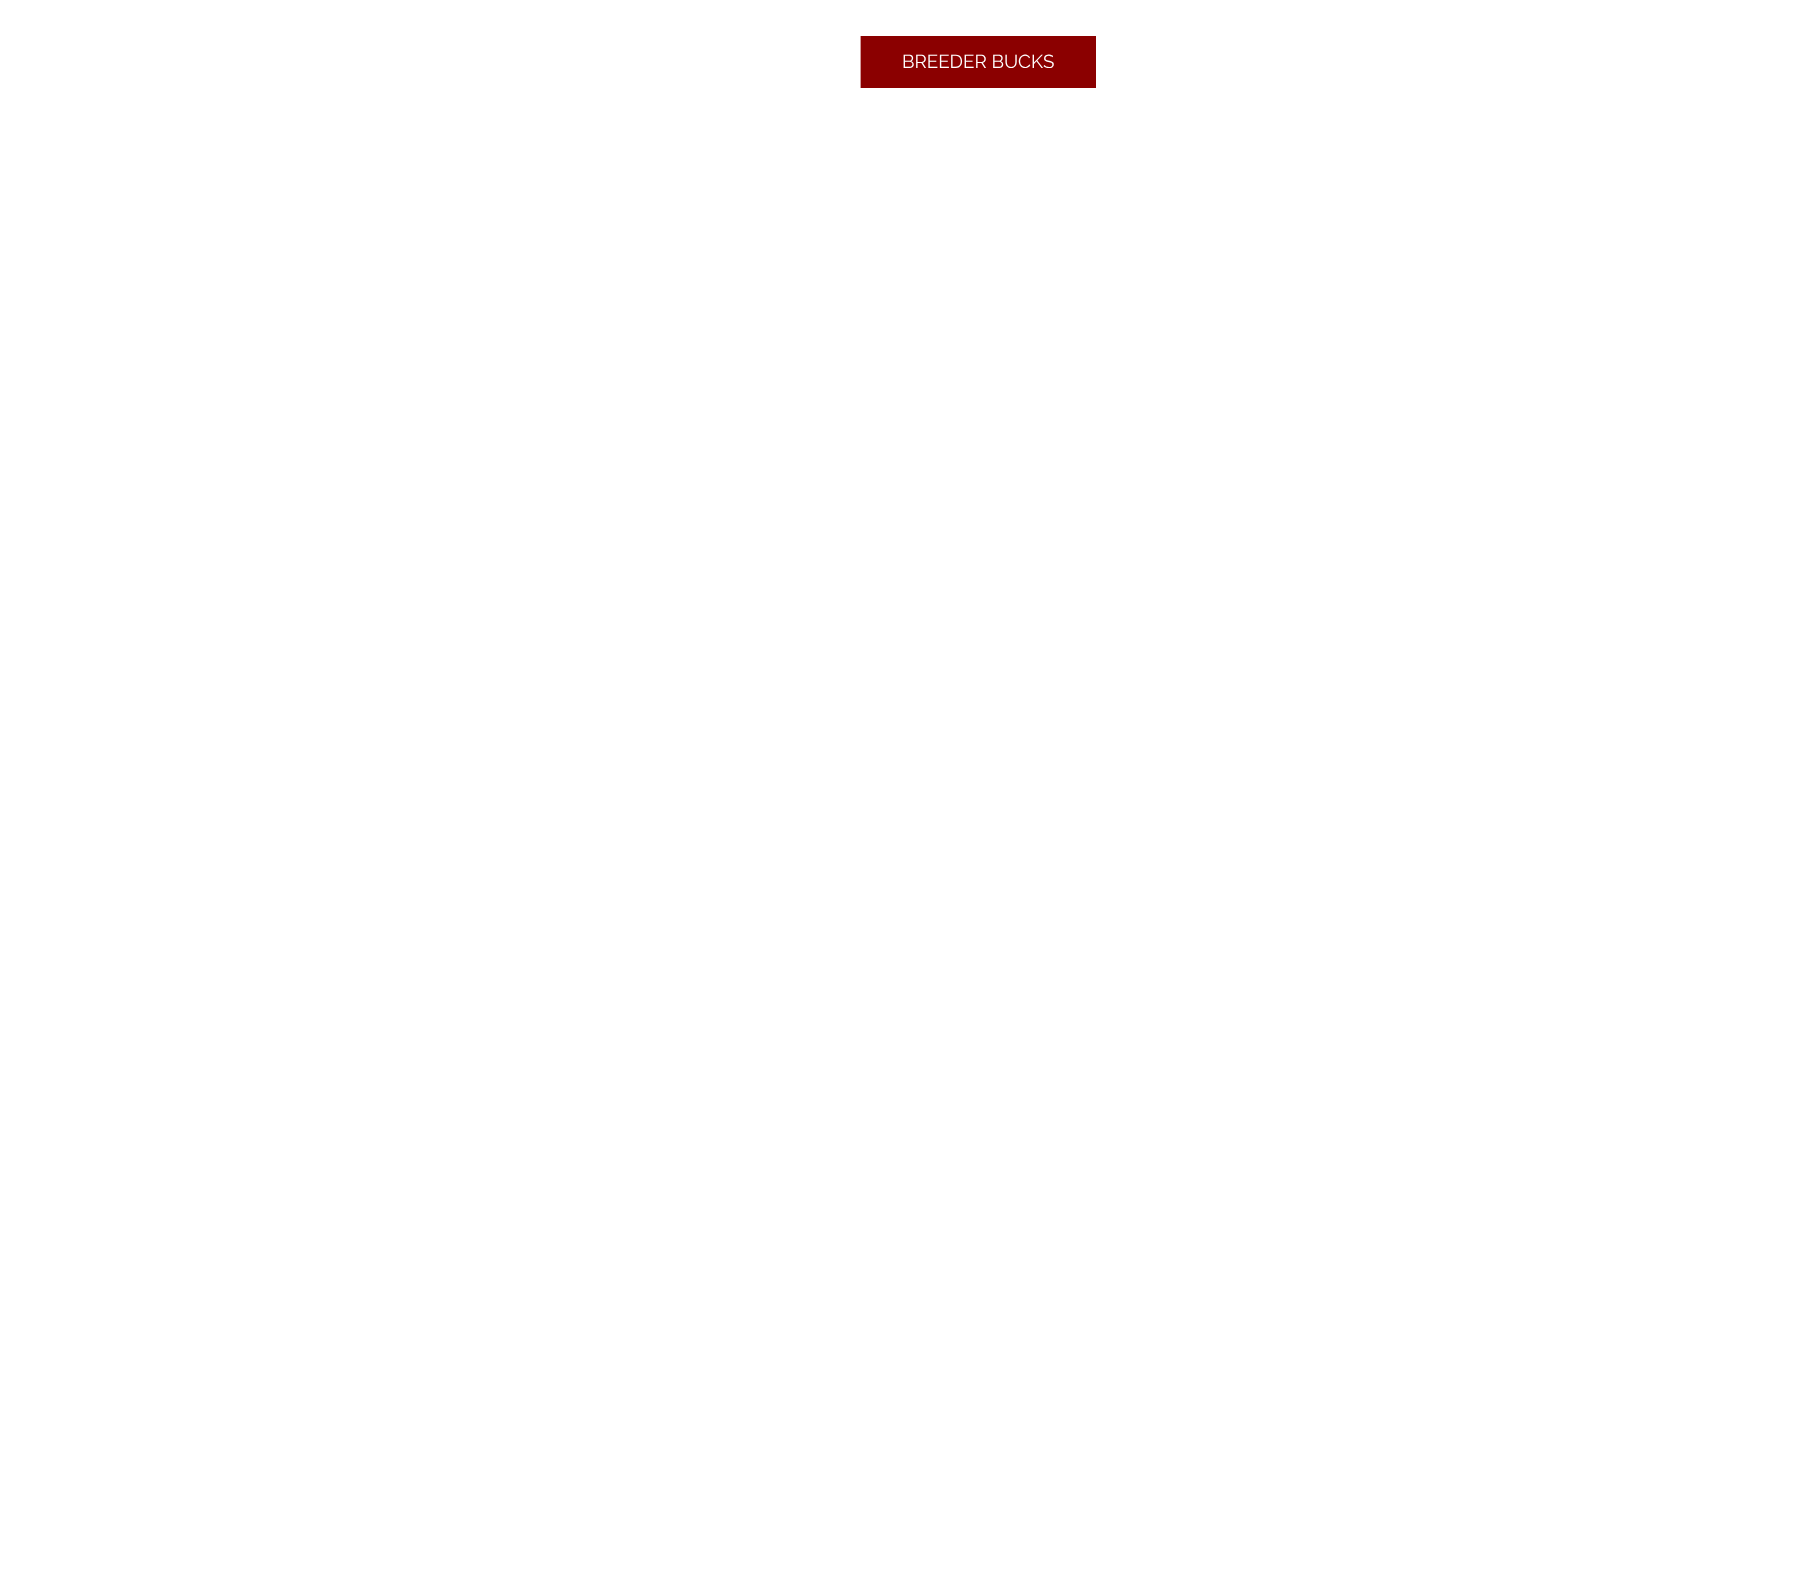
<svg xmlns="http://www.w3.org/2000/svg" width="1797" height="1590">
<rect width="100%" height="100%" fill="#fff"/>
<rect x="861" y="36" width="235" height="52" fill="#8b0000"/>
<rect x="860" y="36" width="1" height="52" fill="#d29c9c"/>
<text x="902" y="68" style="font-family:Raleway;font-size:18.75px;fill:#fff">BREEDER BUCKS</text>
</svg>
